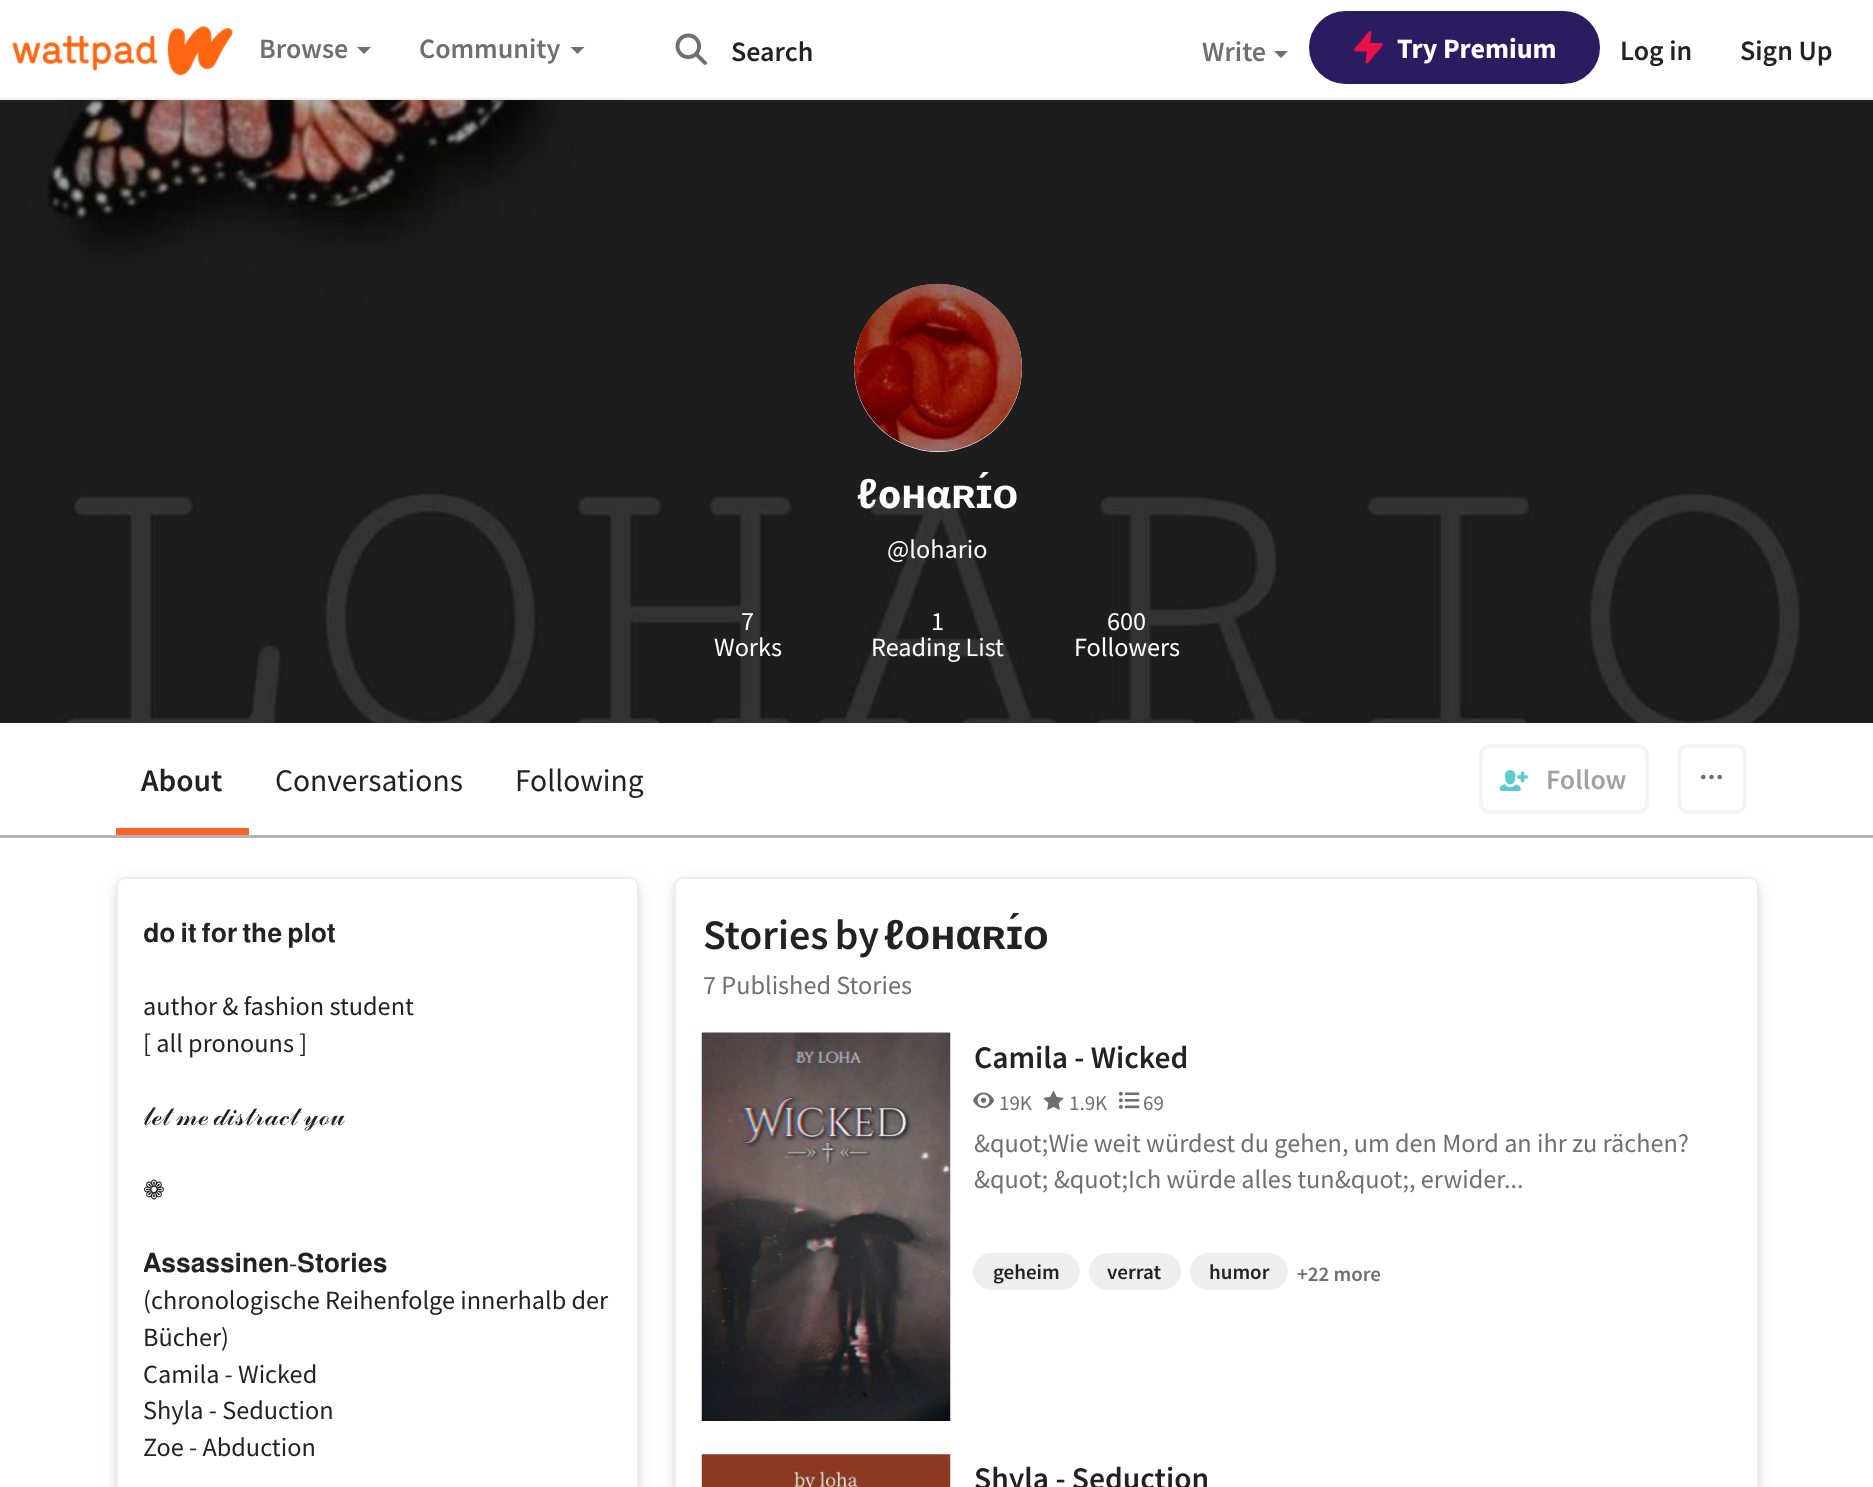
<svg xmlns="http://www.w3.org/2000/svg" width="1873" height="1487">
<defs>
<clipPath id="clip1"><rect x="144" y="914" width="467" height="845"/></clipPath>
</defs>
<rect width="100%" height="100%" fill="#fff"/>
<rect y="98" width="1873" height="2" fill="#eee"/>
<image x="12" y="26" width="221" height="50" href="media/1.png"/>
<text x="259" y="58" style="font-family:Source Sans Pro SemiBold;font-size:28px;font-weight:600;fill:#6f6f6f">Browse</text>
<path d="M357 47h14l-7 7z" fill="#6f6f6f"/>
<text x="419" y="58" style="font-family:Source Sans Pro SemiBold;font-size:28px;font-weight:600;fill:#6f6f6f">Community</text>
<path d="M570.5 47h14l-7 7z" fill="#6f6f6f"/>
<image x="675" y="33" width="32" height="32" href="media/2.png"/>
<text x="731" y="61" style="font-family:Source Sans Pro SemiBold;font-size:28px;font-weight:600;fill:#222">Search</text>
<text x="1202" y="61" style="font-family:Source Sans Pro SemiBold;font-size:28px;font-weight:600;fill:#6f6f6f">Write</text>
<path d="M1274 51h14l-7 7z" fill="#6f6f6f"/>
<rect x="1309" y="11" width="291" height="73" rx="36.5" fill="#2a1c60"/>
<path d="M1370 32.5l-14.5 17.5h13l-1.5 12l14.5-17.5h-13z" fill="#e81249" stroke="#e81249" stroke-width="2.9" stroke-linecap="round" stroke-linejoin="round"/>
<text x="1397" y="58" style="font-family:Source Sans Pro;font-size:28px;font-weight:bold;fill:#fff">Try Premium</text>
<text x="1620" y="60" style="font-family:Source Sans Pro SemiBold;font-size:28px;font-weight:600;fill:#222">Log in</text>
<text x="1740" y="60" style="font-family:Source Sans Pro SemiBold;font-size:28px;font-weight:600;fill:#222">Sign Up</text>
<image x="0" y="100" width="1873" height="623" href="media/3.png"/>
<circle cx="938" cy="368" r="84" fill="#eee"/>
<image x="854" y="283" width="168" height="169" href="media/4.png"/>
<text x="857" y="508" style="font-family:Liberation Sans;font-size:42px;font-weight:bold;fill:#fff">ℓ</text>
<text x="878" y="508" style="font-family:Source Sans Pro;font-size:42px;font-weight:bold;fill:#fff">ο</text>
<text x="901" y="508" style="font-family:Liberation Sans;font-size:42px;font-weight:bold;fill:#fff">н</text>
<text x="926" y="508" style="font-family:Source Sans Pro;font-size:42px;font-weight:bold;fill:#fff">α</text>
<text x="951" y="508" style="font-family:Liberation Sans;font-size:42px;font-weight:bold;fill:#fff">ʀɪ́ᴏ</text>
<text x="887" y="558" style="font-family:Source Sans Pro;font-size:26.25px;fill:#fff">@lohario</text>
<text x="741" y="630" style="font-family:Source Sans Pro;font-size:26.25px;fill:#fff">7</text>
<text x="714" y="656" style="font-family:Source Sans Pro;font-size:26.25px;fill:#fff">Works</text>
<text x="931" y="630" style="font-family:Source Sans Pro;font-size:26.25px;fill:#fff">1</text>
<text x="871" y="656" style="font-family:Source Sans Pro;font-size:26.25px;fill:#fff">Reading List</text>
<text x="1107" y="630" style="font-family:Source Sans Pro;font-size:26.25px;fill:#fff">600</text>
<text x="1074" y="656" style="font-family:Source Sans Pro;font-size:26.25px;fill:#fff">Followers</text>
<rect y="835" width="1873" height="3" fill="#b3b3b3"/>
<rect x="116" y="828" width="133" height="7" fill="#ff6122"/>
<text x="141" y="791" style="font-family:Source Sans Pro SemiBold;font-size:31.5px;font-weight:600;fill:#222">About</text>
<text x="275" y="791" style="font-family:Source Sans Pro;font-size:31.5px;fill:#222">Conversations</text>
<text x="515" y="791" style="font-family:Source Sans Pro;font-size:31.5px;fill:#222">Following</text>
<rect x="1481" y="746" width="166" height="66" rx="9" fill="none" stroke="#f4f4f4" stroke-width="4"/>
<image x="1499" y="770" width="29" height="21" href="media/5.png"/>
<text x="1546" y="789" style="font-family:Source Sans Pro SemiBold;font-size:28px;font-weight:600;fill:#a1a1a1">Follow</text>
<rect x="1679" y="746" width="66" height="66" rx="9" fill="none" stroke="#f4f4f4" stroke-width="4"/>
<circle cx="1703.3" cy="777" r="1.2" fill="none" stroke="#6f6f6f" stroke-width="2.3"/>
<circle cx="1711.5" cy="777" r="1.2" fill="none" stroke="#6f6f6f" stroke-width="2.3"/>
<circle cx="1719.7" cy="777" r="1.2" fill="none" stroke="#6f6f6f" stroke-width="2.3"/>
<rect x="116" y="884" width="523" height="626" rx="9" fill="#2222221a" filter="blur(4.5px)"/>
<rect x="116" y="879" width="523" height="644" rx="9" fill="#22222214" filter="blur(9px)"/>
<rect x="117" y="878" width="521" height="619" rx="8" fill="#fff" stroke="#eee" stroke-width="2"/>
<g clip-path="url(#clip1)">
<text x="143" y="942" word-spacing="-1.5" style="font-family:FreeSans;font-size:26.25px;fill:#222">𝐝𝐨 𝐢𝐭 𝐟𝐨𝐫 𝐭𝐡𝐞 𝐩𝐥𝐨𝐭</text>
</g>
<text x="143" y="1015" style="font-family:Source Sans Pro;font-size:26.25px;fill:#222">author &amp; fashion student</text>
<text x="143" y="1052" style="font-family:Source Sans Pro;font-size:26.25px;fill:#222">[ all pronouns ]</text>
<g clip-path="url(#clip1)">
<text x="143" y="1125" word-spacing="-1.5" style="font-family:FreeSerif;font-size:26.25px;fill:#222">𝓁ℯ𝓉 𝓂ℯ 𝒹𝒾𝓈𝓉𝓇𝒶𝒸𝓉 𝓎ℴ𝓊</text>
<text x="143" y="1199" style="font-family:DejaVu Sans;font-size:26.25px;fill:#222">❁</text>
<text x="143" y="1272" style="font-family:FreeSans;font-size:26.25px;fill:#222">𝐀𝐬𝐬𝐚𝐬𝐬𝐢𝐧𝐞𝐧</text>
</g>
<text x="289" y="1272" style="font-family:Source Sans Pro;font-size:26.25px;fill:#222">-</text>
<text x="297" y="1272" style="font-family:FreeSans;font-size:26.25px;fill:#222">𝐒𝐭𝐨𝐫𝐢𝐞𝐬</text>
<text x="143" y="1309" style="font-family:Source Sans Pro;font-size:26.25px;fill:#222">(chronologische Reihenfolge innerhalb der</text>
<text x="143" y="1346" style="font-family:Source Sans Pro;font-size:26.25px;fill:#222">Bücher)</text>
<text x="143" y="1383" style="font-family:Source Sans Pro;font-size:26.25px;fill:#222">Camila - Wicked</text>
<text x="143" y="1419" style="font-family:Source Sans Pro;font-size:26.25px;fill:#222">Shyla - Seduction</text>
<text x="143" y="1456" style="font-family:Source Sans Pro;font-size:26.25px;fill:#222">Zoe - Abduction</text>
<rect x="674" y="884" width="1085" height="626" rx="9" fill="#2222221a" filter="blur(4.5px)"/>
<rect x="674" y="879" width="1085" height="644" rx="9" fill="#22222214" filter="blur(9px)"/>
<rect x="675" y="878" width="1083" height="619" rx="8" fill="#fff" stroke="#eee" stroke-width="2"/>
<text x="703" y="949" word-spacing="-2" style="font-family:Source Sans Pro SemiBold;font-size:42px;font-weight:600;fill:#222">Stories by</text>
<text x="884" y="949" style="font-family:Liberation Sans;font-size:42px;font-weight:bold;fill:#222">ℓοнαʀɪ́ᴏ</text>
<text x="703" y="994" style="font-family:Source Sans Pro;font-size:26.25px;fill:#6f6f6f">7 Published Stories</text>
<image x="701" y="1032" width="250" height="389" href="media/6.png"/>
<text x="974" y="1068" style="font-family:Source Sans Pro SemiBold;font-size:31.5px;font-weight:600;fill:#222">Camila - Wicked</text>
<image x="973" y="1092" width="21" height="17" href="media/7.png"/>
<text x="999" y="1110" style="font-family:Source Sans Pro;font-size:21px;fill:#6f6f6f">19K</text>
<image x="1043" y="1090" width="21" height="21" href="media/8.png"/>
<text x="1069" y="1110" style="font-family:Source Sans Pro;font-size:21px;fill:#6f6f6f">1.9K</text>
<image x="1118" y="1091" width="22" height="18" href="media/9.png"/>
<text x="1143" y="1110" style="font-family:Source Sans Pro;font-size:21px;fill:#6f6f6f">69</text>
<text x="974" y="1152" style="font-family:Source Sans Pro;font-size:26.25px;fill:#6f6f6f">&amp;quot;Wie weit würdest du gehen, um den Mord an ihr zu rächen?</text>
<text x="974" y="1188" style="font-family:Source Sans Pro;font-size:26.25px;fill:#6f6f6f">&amp;quot; &amp;quot;Ich würde alles tun&amp;quot;, erwider...</text>
<rect x="974" y="1254" width="105" height="35" rx="17.5" fill="#eee" stroke="#eee" stroke-width="2"/>
<text x="993" y="1279" style="font-family:Source Sans Pro SemiBold;font-size:21px;font-weight:600;fill:#222">geheim</text>
<rect x="1090" y="1254" width="90" height="35" rx="17.5" fill="#eee" stroke="#eee" stroke-width="2"/>
<text x="1107" y="1279" style="font-family:Source Sans Pro SemiBold;font-size:21px;font-weight:600;fill:#222">verrat</text>
<rect x="1191" y="1254" width="96" height="35" rx="17.5" fill="#eee" stroke="#eee" stroke-width="2"/>
<text x="1209" y="1279" style="font-family:Source Sans Pro SemiBold;font-size:21px;font-weight:600;fill:#222">humor</text>
<text x="1297" y="1281" style="font-family:Source Sans Pro SemiBold;font-size:21px;font-weight:600;fill:#6f6f6f">+22 more</text>
<image x="701" y="1454" width="250" height="33" href="media/10.png"/>
<text x="974" y="1489" style="font-family:Source Sans Pro SemiBold;font-size:31.5px;font-weight:600;fill:#222">Shyla - Seduction</text>
</svg>
